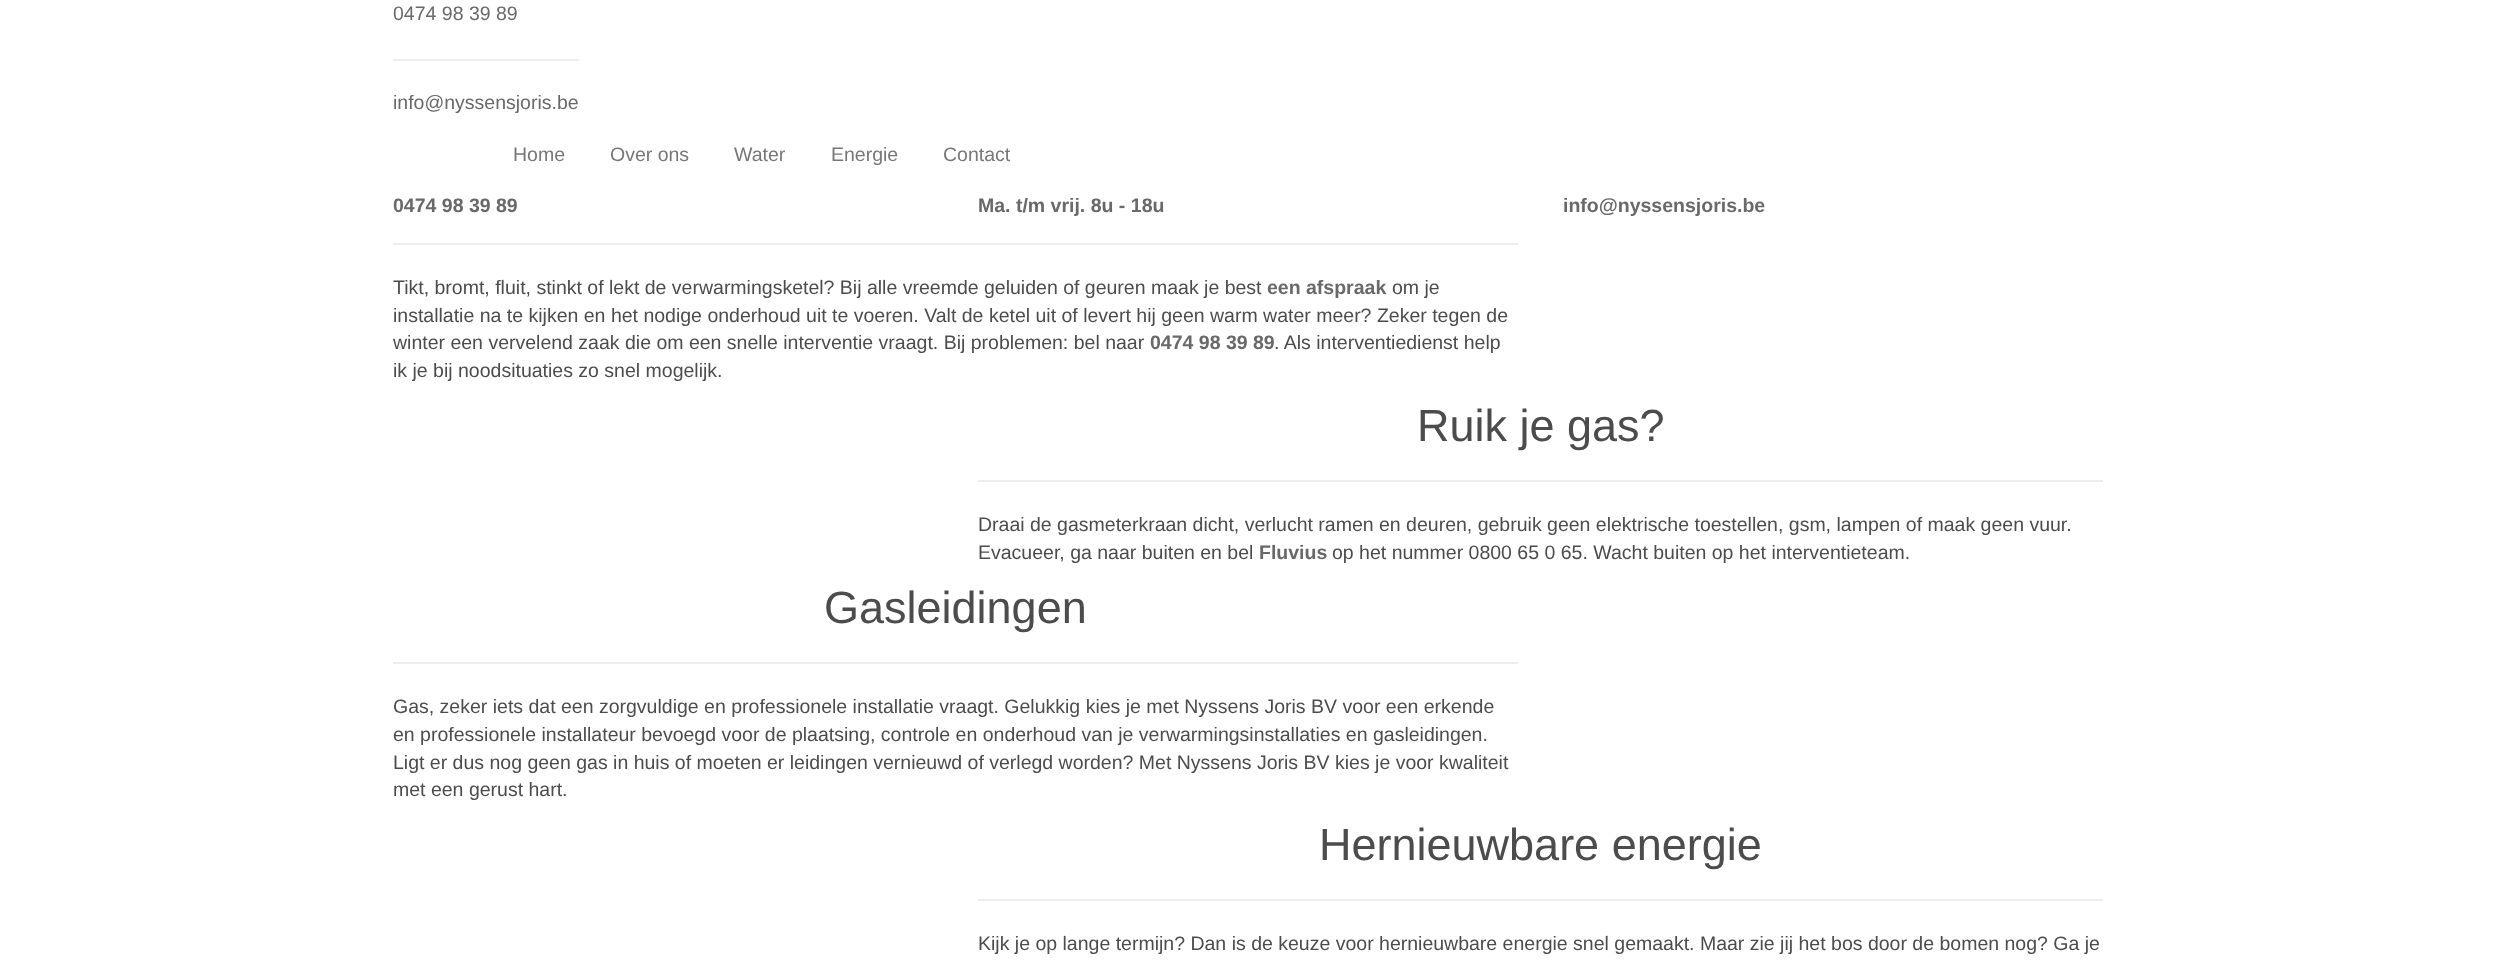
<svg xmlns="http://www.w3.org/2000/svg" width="2496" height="968">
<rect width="100%" height="100%" fill="#fff"/>
<text x="393" y="20" style="font-family:Liberation Sans;font-size:19.5px;fill:#696969">0474 98 39 89</text>
<rect x="393" y="59" width="186" height="2" fill="#eee"/>
<text x="393" y="109" style="font-family:Liberation Sans;font-size:19.5px;fill:#696969">info@nyssensjoris.be</text>
<text x="513" y="161" style="font-family:Liberation Sans;font-size:19.5px;fill:#777">Home</text>
<text x="610" y="161" style="font-family:Liberation Sans;font-size:19.5px;fill:#777">Over ons</text>
<text x="734" y="161" style="font-family:Liberation Sans;font-size:19.5px;fill:#777">Water</text>
<text x="831" y="161" style="font-family:Liberation Sans;font-size:19.5px;fill:#777">Energie</text>
<text x="943" y="161" style="font-family:Liberation Sans;font-size:19.5px;fill:#777">Contact</text>
<text x="393" y="212" style="font-family:Liberation Sans;font-size:19.5px;font-weight:bold;fill:#696969">0474 98 39 89</text>
<text x="978" y="212" style="font-family:Liberation Sans;font-size:19.5px;font-weight:bold;fill:#696969">Ma. t/m vrij. 8u - 18u</text>
<text x="1563" y="212" style="font-family:Liberation Sans;font-size:19.5px;font-weight:bold;fill:#696969">info@nyssensjoris.be</text>
<rect x="393" y="243" width="1125" height="2" fill="#eee"/>
<text x="393" y="294" style="font-family:Liberation Sans;font-size:19.5px;fill:#4c4c4c">Tikt, bromt, fluit, stinkt of lekt de verwarmingsketel? Bij alle vreemde geluiden of geuren maak je best</text>
<text x="1267" y="294" style="font-family:Liberation Sans;font-size:19.5px;font-weight:bold;fill:#696969">een afspraak</text>
<text x="1392" y="294" style="font-family:Liberation Sans;font-size:19.5px;fill:#4c4c4c">om je</text>
<text x="393" y="322" style="font-family:Liberation Sans;font-size:19.5px;fill:#4c4c4c">installatie na te kijken en het nodige onderhoud uit te voeren. Valt de ketel uit of levert hij geen warm water meer? Zeker tegen de</text>
<text x="393" y="349" style="font-family:Liberation Sans;font-size:19.5px;fill:#4c4c4c">winter een vervelend zaak die om een snelle interventie vraagt. Bij problemen: bel naar</text>
<text x="1150" y="349" style="font-family:Liberation Sans;font-size:19.5px;font-weight:bold;fill:#696969">0474 98 39 89</text>
<text x="1274" y="349" style="font-family:Liberation Sans;font-size:19.5px;fill:#4c4c4c">. Als interventiedienst help</text>
<text x="393" y="377" style="font-family:Liberation Sans;font-size:19.5px;fill:#4c4c4c">ik je bij noodsituaties zo snel mogelijk.</text>
<text x="1417" y="441" style="font-family:Liberation Sans;font-size:45px;fill:#4c4c4c">Ruik je gas?</text>
<rect x="978" y="480" width="1125" height="2" fill="#eee"/>
<text x="978" y="531" style="font-family:Liberation Sans;font-size:19.5px;fill:#4c4c4c">Draai de gasmeterkraan dicht, verlucht ramen en deuren, gebruik geen elektrische toestellen, gsm, lampen of maak geen vuur.</text>
<text x="978" y="559" style="font-family:Liberation Sans;font-size:19.5px;fill:#4c4c4c">Evacueer, ga naar buiten en bel</text>
<text x="1259" y="559" style="font-family:Liberation Sans;font-size:19.5px;font-weight:bold;fill:#696969">Fluvius</text>
<text x="1332" y="559" style="font-family:Liberation Sans;font-size:19.5px;fill:#4c4c4c">op het nummer 0800 65 0 65. Wacht buiten op het interventieteam.</text>
<text x="824" y="623" style="font-family:Liberation Sans;font-size:45px;fill:#4c4c4c">Gasleidingen</text>
<rect x="393" y="662" width="1125" height="2" fill="#eee"/>
<text x="393" y="713" style="font-family:Liberation Sans;font-size:19.5px;fill:#4c4c4c">Gas, zeker iets dat een zorgvuldige en professionele installatie vraagt. Gelukkig kies je met Nyssens Joris BV voor een erkende</text>
<text x="393" y="741" style="font-family:Liberation Sans;font-size:19.5px;fill:#4c4c4c">en professionele installateur bevoegd voor de plaatsing, controle en onderhoud van je verwarmingsinstallaties en gasleidingen.</text>
<text x="393" y="769" style="font-family:Liberation Sans;font-size:19.5px;fill:#4c4c4c">Ligt er dus nog geen gas in huis of moeten er leidingen vernieuwd of verlegd worden? Met Nyssens Joris BV kies je voor kwaliteit</text>
<text x="393" y="796" style="font-family:Liberation Sans;font-size:19.5px;fill:#4c4c4c">met een gerust hart.</text>
<text x="1319" y="860" style="font-family:Liberation Sans;font-size:45px;fill:#4c4c4c">Hernieuwbare energie</text>
<rect x="978" y="899" width="1125" height="2" fill="#eee"/>
<text x="978" y="950" style="font-family:Liberation Sans;font-size:19.5px;fill:#4c4c4c">Kijk je op lange termijn? Dan is de keuze voor hernieuwbare energie snel gemaakt. Maar zie jij het bos door de bomen nog? Ga je</text>
</svg>
